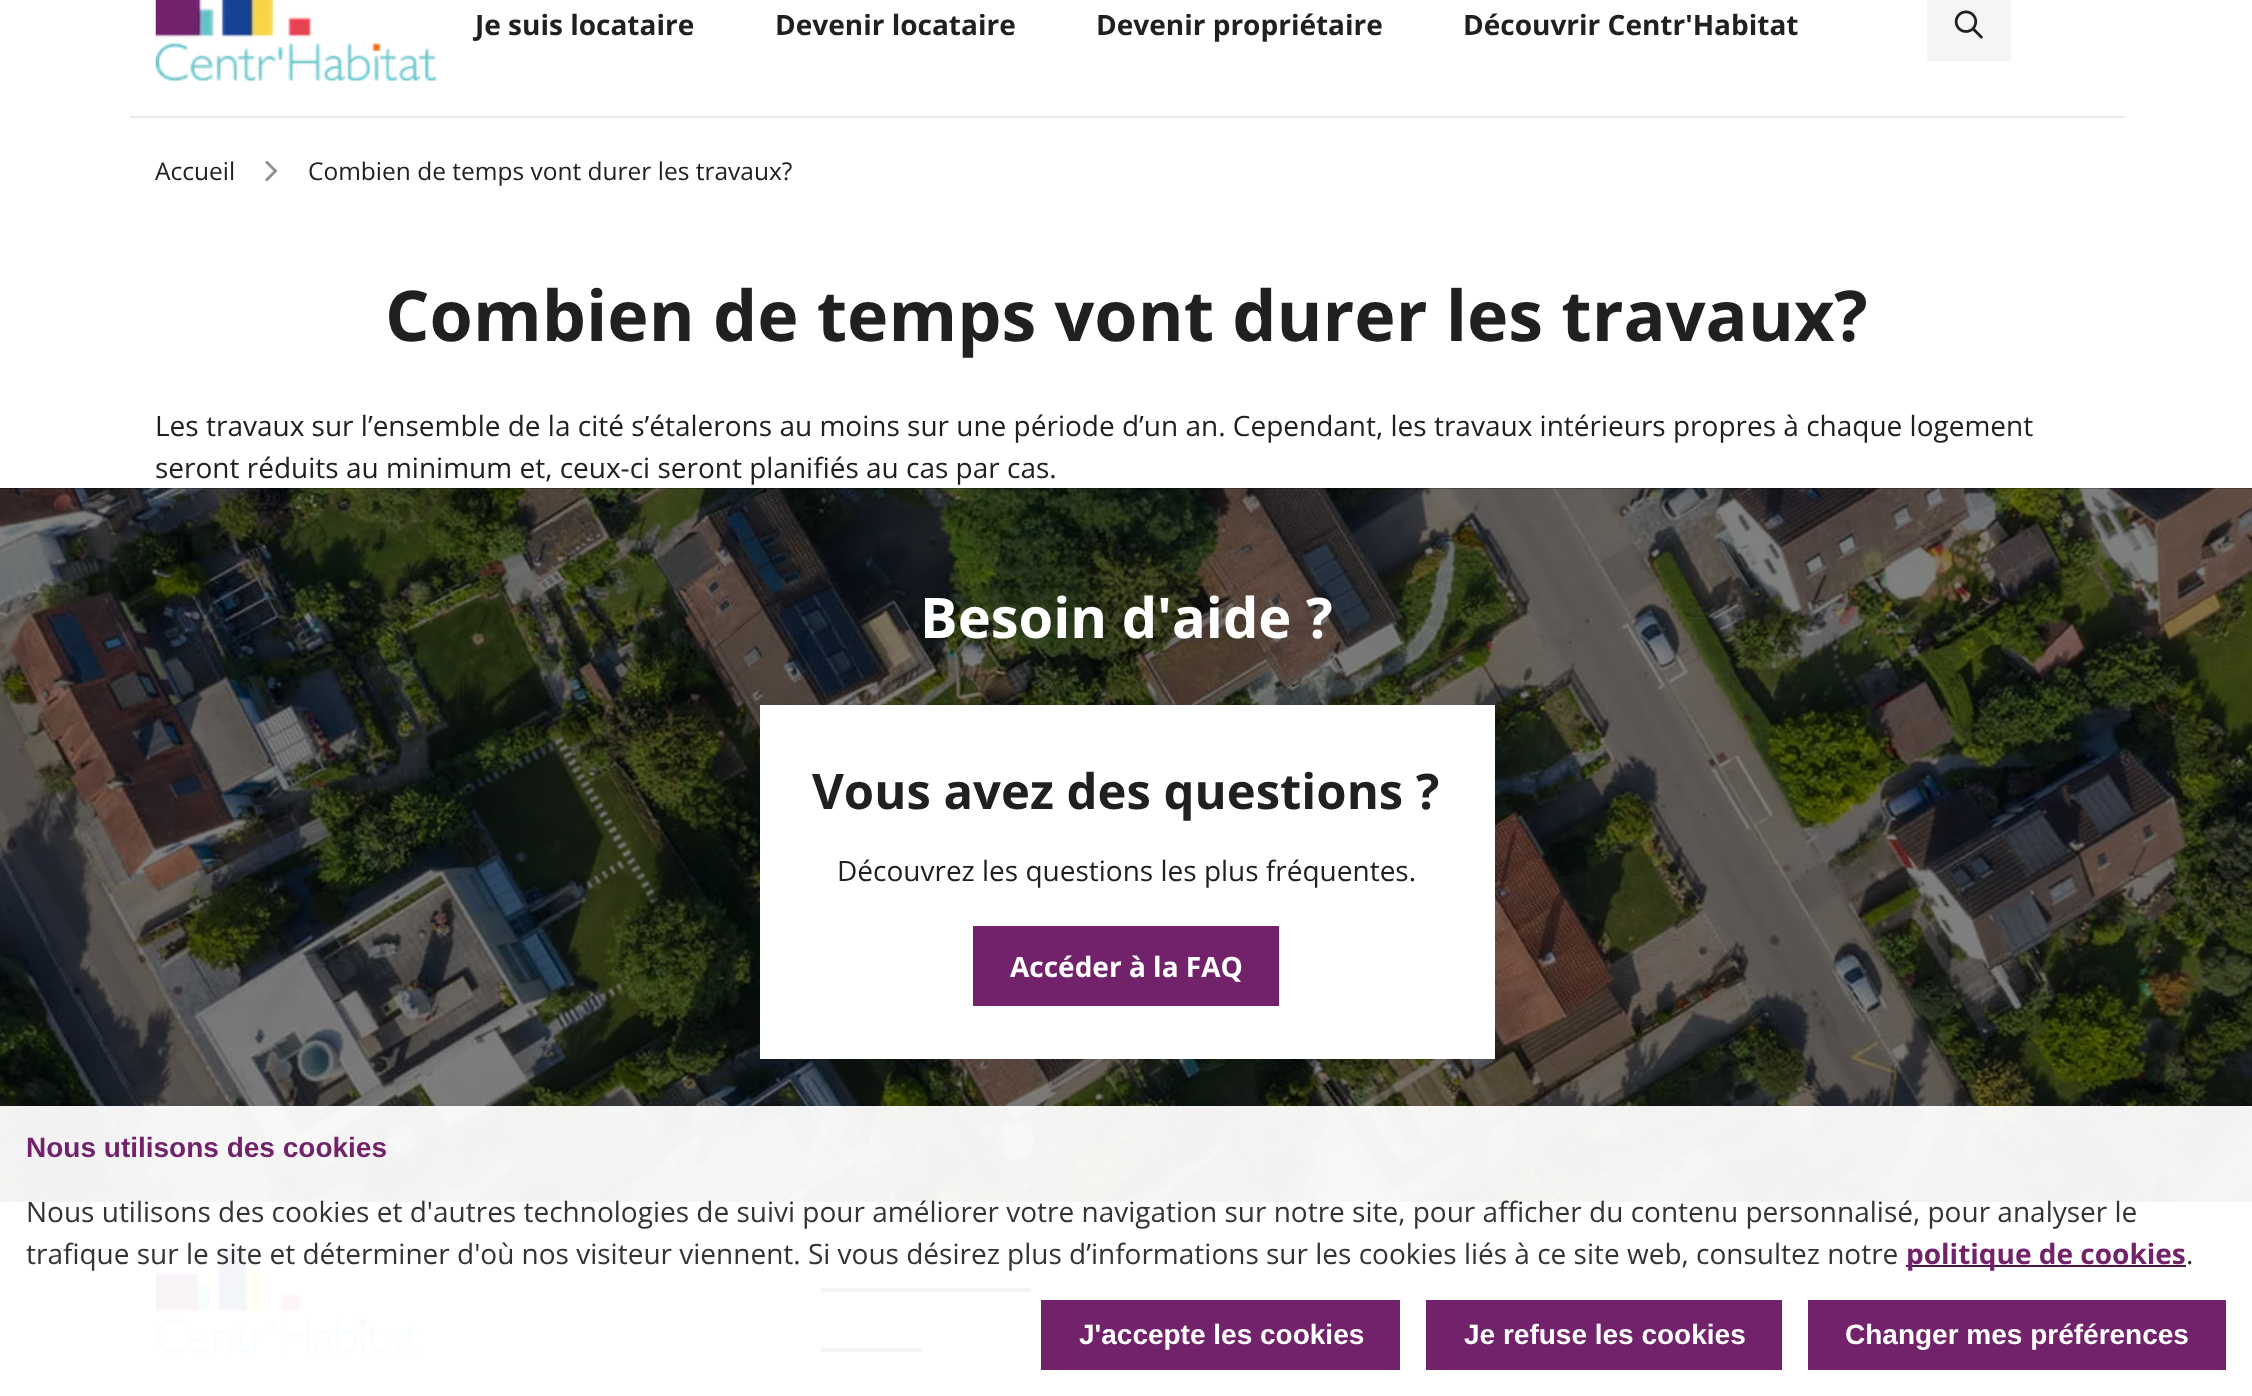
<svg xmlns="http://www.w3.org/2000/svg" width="2252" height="1396">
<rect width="100%" height="100%" fill="#fff"/>
<rect x="130" y="116" width="1995" height="2" fill="#e9e9e9"/>
<image x="155" y="0" width="281" height="81" href="media/1.png"/>
<text x="475" y="35" style="font-family:Open Sans;font-size:28px;font-weight:bold;fill:#202020">Je suis locataire</text>
<text x="775" y="35" style="font-family:Open Sans;font-size:28px;font-weight:bold;fill:#202020">Devenir locataire</text>
<text x="1096" y="35" style="font-family:Open Sans;font-size:28px;font-weight:bold;fill:#202020">Devenir propriétaire</text>
<text x="1463" y="35" style="font-family:Open Sans;font-size:28px;font-weight:bold;fill:#202020">Découvrir Centr'Habitat</text>
<rect x="1927" width="84" height="61" fill="#f5f5f5"/>
<image x="1954" y="10" width="29" height="29" href="media/2.png"/>
<text x="155" y="180" style="font-family:Open Sans;font-size:24.5px;fill:#202020">Accueil</text>
<path d="M265 179.5l2 2l10.5-10.5l-10.5-10.5l-2 2l8.5 8.5z" fill="#909090"/>
<text x="308" y="180" style="font-family:Open Sans;font-size:24.5px;fill:#202020">Combien de temps vont durer les travaux?</text>
<text x="385" y="341" style="font-family:Open Sans;font-size:70px;font-weight:bold;fill:#202020">Combien de temps vont durer les travaux?</text>
<text x="155" y="436" style="font-family:Open Sans;font-size:28px;fill:#202020">Les travaux sur l’ensemble de la cité s’étalerons au moins sur une période d’un an. Cependant, les travaux intérieurs propres à chaque logement</text>
<text x="155" y="478" style="font-family:Open Sans;font-size:28px;fill:#202020">seront réduits au minimum et, ceux-ci seront planifiés au cas par cas.</text>
<rect y="488" width="2252" height="714" fill="#000"/>
<image x="0" y="488" width="2252" height="715" href="media/3.png"/>
<text x="920" y="638" style="font-family:Open Sans;font-size:56px;font-weight:bold;fill:#fff">Besoin d'aide ?</text>
<rect x="760" y="705" width="735" height="354" fill="#fff"/>
<text x="812" y="809" style="font-family:Open Sans;font-size:49px;font-weight:bold;fill:#202020">Vous avez des questions ?</text>
<text x="837" y="881" style="font-family:Open Sans;font-size:28px;fill:#202020">Découvrez les questions les plus fréquentes.</text>
<rect x="973" y="926" width="306" height="80" fill="#71226b"/>
<text x="1010" y="977" style="font-family:Open Sans;font-size:28px;font-weight:bold;fill:#fff">Accéder à la FAQ</text>
<image x="155" y="1247" width="264" height="106" href="media/4.png"/>
<rect x="821" y="1288" width="210" height="4" fill="#4a1646"/>
<rect x="821" y="1348" width="101" height="4" fill="#4a1646"/>
<rect y="1106" width="2252" height="247" fill="#fffffff2"/>
<text x="26" y="1157" style="font-family:Liberation Sans;font-size:28px;font-weight:bold;fill:#71226b">Nous utilisons des cookies</text>
<text x="26" y="1222" style="font-family:Open Sans;font-size:28px;fill:#333">Nous utilisons des cookies et d'autres technologies de suivi pour améliorer votre navigation sur notre site, pour afficher du contenu personnalisé, pour analyser le</text>
<text x="26" y="1264" style="font-family:Open Sans;font-size:28px;fill:#333">trafique sur le site et déterminer d'où nos visiteur viennent. Si vous désirez plus d’informations sur les cookies liés à ce site web, consultez notre</text>
<rect x="1906" y="1265" width="280" height="2" fill="#4a1646"/>
<text x="1906" y="1264" style="font-family:Open Sans;font-size:28px;font-weight:bold;fill:#71226b">politique de cookies</text>
<text x="2186" y="1264" style="font-family:Open Sans;font-size:28px;fill:#333">.</text>
<rect x="1041" y="1300" width="359" height="70" fill="#71226b"/>
<text x="1079" y="1344" style="font-family:Liberation Sans;font-size:28px;font-weight:bold;fill:#fff">J'accepte les cookies</text>
<rect x="1426" y="1300" width="356" height="70" fill="#71226b"/>
<text x="1464" y="1344" style="font-family:Liberation Sans;font-size:28px;font-weight:bold;fill:#fff">Je refuse les cookies</text>
<rect x="1808" y="1300" width="418" height="70" fill="#71226b"/>
<text x="1845" y="1344" style="font-family:Liberation Sans;font-size:28px;font-weight:bold;fill:#fff">Changer mes préférences</text>
</svg>
